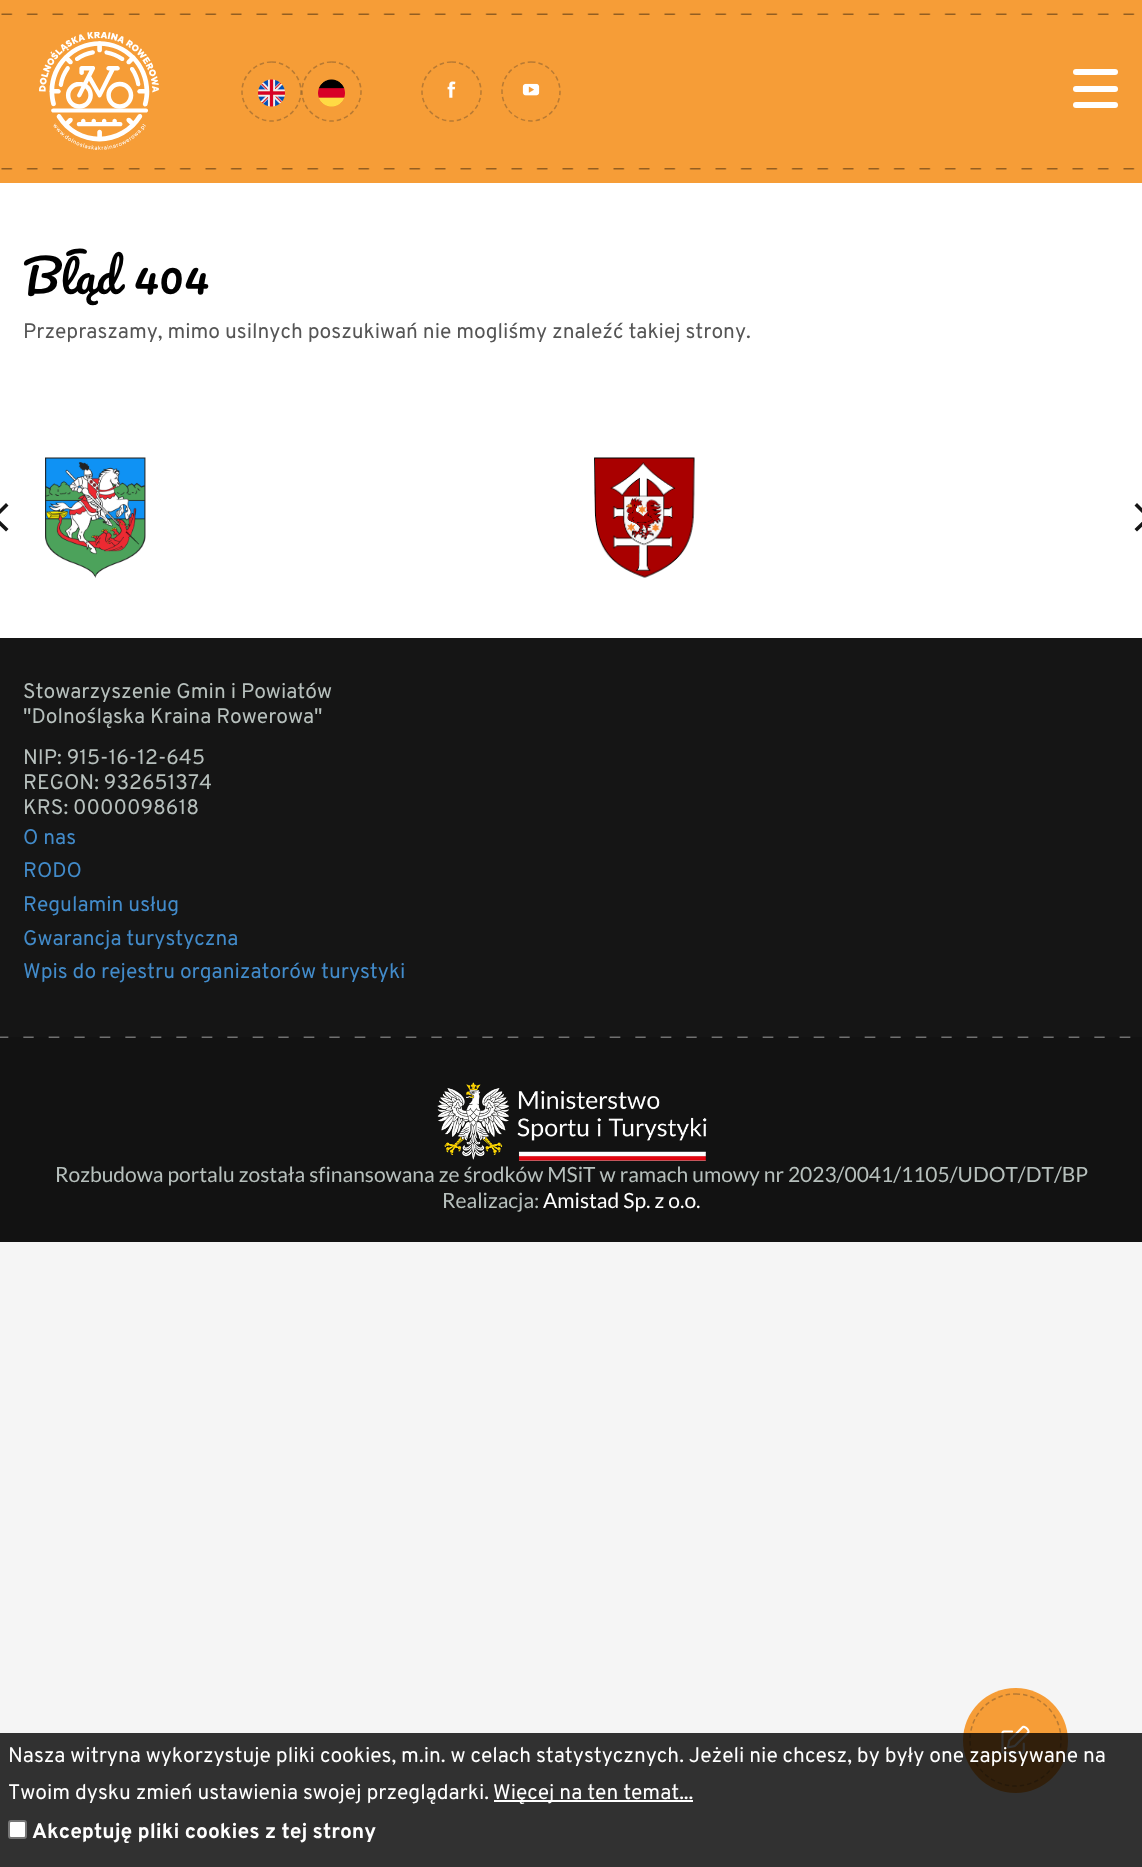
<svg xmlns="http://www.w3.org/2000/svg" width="1142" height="1867">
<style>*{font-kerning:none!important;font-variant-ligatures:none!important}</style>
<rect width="100%" height="100%" fill="#f5f5f5"/>
<rect width="1142" height="183" fill="#f69d37"/>
<image x="1" y="13" width="1134" height="157" href="media/1.png"/>
<image x="39" y="32" width="120" height="118" href="media/2.png"/>
<path d="M271.5 62c16 0 29.5 13.5 29.5 29.5c0 16-13.5 29.5-29.5 29.5c-16 0-29.5-13.5-29.5-29.5c0-16 13.5-29.5 29.5-29.5z" fill="none" stroke="#b87a33" stroke-width="1.5" stroke-dasharray="4.5 3"/>
<image x="258" y="79" width="27" height="28" href="media/3.png"/>
<path d="M331.5 62c16 0 29.5 13.5 29.5 29.5c0 16-13.5 29.5-29.5 29.5c-16 0-29.5-13.5-29.5-29.5c0-16 13.5-29.5 29.5-29.5z" fill="none" stroke="#2828284d" stroke-width="1.5" stroke-dasharray="4.5 3"/>
<image x="318" y="79" width="27" height="28" href="media/4.png"/>
<path d="M451.5 62c16 0 29.5 13.5 29.5 29.5c0 16-13.5 29.5-29.5 29.5c-16 0-29.5-13.5-29.5-29.5c0-16 13.5-29.5 29.5-29.5z" fill="none" stroke="#b87a33" stroke-width="1.5" stroke-dasharray="4.5 3"/>
<image x="447" y="81" width="9" height="17" href="media/5.png"/>
<path d="M531 62c16 0 29 13.5 29 29.5c0 16-13 29.5-29 29.5c-16 0-29-13.5-29-29.5c0-16 13-29.5 29-29.5z" fill="none" stroke="#b87a33" stroke-width="1.5" stroke-dasharray="4.5 3"/>
<image x="522" y="83" width="18" height="13" href="media/6.png"/>
<rect x="1073" y="69" width="45" height="6" rx="3" fill="#fff"/>
<rect x="1073" y="86" width="45" height="6" rx="3" fill="#fff"/>
<rect x="1073" y="102" width="45" height="6" rx="3" fill="#fff"/>
<rect y="183" width="1142" height="455" fill="#fff"/>
<text x="23" y="294" word-spacing="2" style="font-family:Pacifico;font-size:45px;fill:#000">Błąd 404</text>
<text x="23" y="338" style="font-family:Overpass;font-size:21px;fill:#555">Przepraszamy, mimo usilnych poszukiwań nie mogliśmy znaleźć takiej strony.</text>
<path d="M6 503l2.5 2.5l-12 12l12 11.5l-2.5 2.5l-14.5-14z" fill="#151515"/>
<image x="45" y="457" width="101" height="121" href="media/7.png"/>
<image x="594" y="457" width="101" height="121" href="media/8.png"/>
<path d="M1137 503l-2.5 2.5l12 12l-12 11.5l2.5 2.5l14.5-14z" fill="#151515"/>
<rect y="638" width="1142" height="399" fill="#151515"/>
<text x="23" y="698" style="font-family:Overpass;font-size:21px;fill:#b7c0bd">Stowarzyszenie Gmin i Powiatów</text>
<text x="23" y="723" style="font-family:Overpass;font-size:21px;fill:#b7c0bd">"Dolnośląska Kraina Rowerowa"</text>
<text x="23" y="764" style="font-family:Overpass;font-size:21px;fill:#b7c0bd">NIP: 915-16-12-645</text>
<text x="23" y="789" style="font-family:Overpass;font-size:21px;fill:#b7c0bd">REGON: 932651374</text>
<text x="23" y="814" style="font-family:Overpass;font-size:21px;fill:#b7c0bd">KRS: 0000098618</text>
<text x="23" y="844" style="font-family:Overpass;font-size:21px;fill:#428bca">O nas</text>
<text x="23" y="877" style="font-family:Overpass;font-size:21px;fill:#428bca">RODO</text>
<text x="23" y="911" style="font-family:Overpass;font-size:21px;fill:#428bca">Regulamin usług</text>
<text x="23" y="945" style="font-family:Overpass;font-size:21px;fill:#428bca">Gwarancja turystyczna</text>
<text x="23" y="978" style="font-family:Overpass;font-size:21px;fill:#428bca">Wpis do rejestru organizatorów turystyki</text>
<rect y="1037" width="1142" height="205" fill="#121212"/>
<image x="0" y="1036" width="1131" height="2" href="media/9.png"/>
<image x="437" y="1082" width="270" height="79" href="media/10.png"/>
<text x="55" y="1182" style="font-family:Lato;font-size:21px;fill:#b7c0bd">Rozbudowa portalu została sfinansowana ze środków MSiT w ramach umowy nr 2023/0041/1105/UDOT/DT/BP</text>
<text x="442" y="1208" style="font-family:Lato;font-size:21px;fill:#b7c0bd">Realizacja:</text>
<text x="543" y="1208" style="font-family:Lato;font-size:21px;fill:#fff">Amistad Sp. z o.o.</text>
<circle cx="1015.5" cy="1740.5" r="52.5" fill="#f69d37"/>
<image x="1001" y="1725" width="29" height="29" href="media/11.png"/>
<path d="M1015.5 1694c25.5 0 45.5 20.5 45.5 46c0 25.5-20 46-45.5 46c-25.5 0-45.5-20.5-45.5-46c0-25.5 20-46 45.5-46z" fill="none" stroke="#b87a33" stroke-width="1.5" stroke-dasharray="4.5 3"/>
<rect y="1733" width="1142" height="134" fill="#000000cc"/>
<text x="8" y="1762" style="font-family:Overpass;font-size:21px;fill:#fff">Nasza witryna wykorzystuje pliki cookies, m.in. w celach statystycznych. Jeżeli nie chcesz, by były one zapisywane na</text>
<text x="8" y="1799" style="font-family:Overpass;font-size:21px;fill:#fff">Twoim dysku zmień ustawienia swojej przeglądarki.</text>
<rect x="494" y="1800" width="199" height="2" fill="#fff"/>
<text x="493" y="1799" style="font-family:Overpass;font-size:21px;fill:#fff">Więcej na ten temat...</text>
<rect x="9" y="1821" width="17" height="17" rx="2" fill="#fff" stroke="#767676" stroke-width="2"/>
<text x="32" y="1838" style="font-family:Overpass;font-size:21px;font-weight:bold;fill:#fff">Akceptuję pliki cookies z tej strony</text>
</svg>
